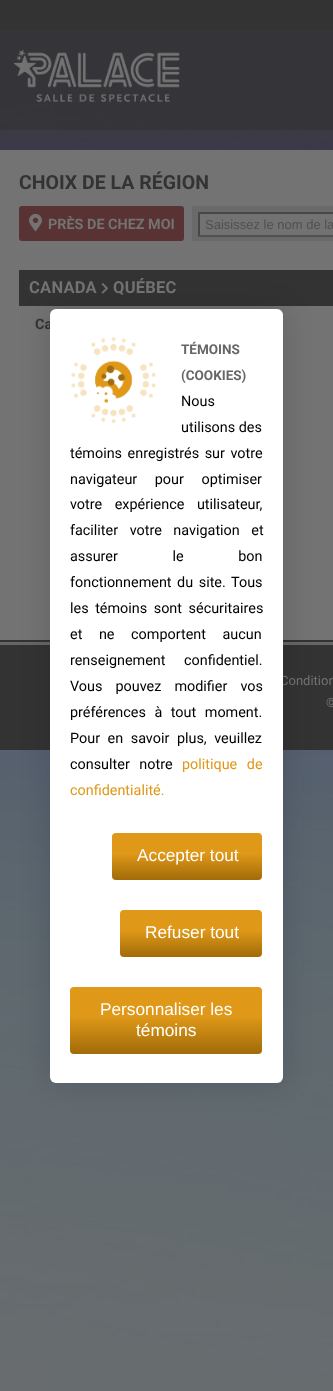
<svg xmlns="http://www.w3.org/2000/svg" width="333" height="1391">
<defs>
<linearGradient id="g1" gradientUnits="userSpaceOnUse" x1="187" y1="833" x2="187" y2="880"><stop offset="0" stop-color="#df9818"/><stop offset="0.44" stop-color="#df9818"/><stop offset="1" stop-color="#a16b09"/></linearGradient>
<linearGradient id="g2" gradientUnits="userSpaceOnUse" x1="191" y1="910" x2="191" y2="957"><stop offset="0" stop-color="#df9818"/><stop offset="0.44" stop-color="#df9818"/><stop offset="1" stop-color="#a16b09"/></linearGradient>
<linearGradient id="g3" gradientUnits="userSpaceOnUse" x1="166" y1="987" x2="166" y2="1054"><stop offset="0" stop-color="#df9818"/><stop offset="0.44" stop-color="#df9818"/><stop offset="1" stop-color="#a16b09"/></linearGradient>
</defs>
<rect width="100%" height="100%" fill="#fff"/>
<image x="0" y="30" width="333" height="1361" href="media/1.png"/>
<rect y="30" width="333" height="100" fill="#333333b3"/>
<rect width="333" height="30" fill="#333"/>
<image x="14" y="50" width="166" height="52" href="media/2.png"/>
<rect y="150" width="333" height="490" fill="#737373"/>
<text x="19" y="189" style="font-family:Roboto;font-size:19.5px;font-weight:bold;fill:#333">CHOIX DE LA RÉGION</text>
<rect x="19" y="206" width="165" height="35" rx="3" fill="#593333"/>
<image x="29" y="213" width="13" height="19" href="media/3.png"/>
<text x="48" y="229" style="font-family:Roboto;font-size:14.4px;font-weight:bold;fill:#737373">PRÈS DE CHEZ MOI</text>
<rect x="192" y="206" width="141" height="35" fill="#6a6a6a"/>
<rect x="198" y="212" width="135" height="25" fill="#727272"/>
<path d="M198 212h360l-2 2h-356z" fill="#474747"/>
<path d="M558 237h-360l2-2h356z" fill="#515151"/>
<path d="M198 237v-25l2 2v21z" fill="#474747"/>
<text x="205" y="229" style="font-family:Liberation Sans;font-size:13px;fill:#505050">Saisissez le nom de la</text>
<rect x="19" y="270" width="314" height="36" fill="#333"/>
<text x="29" y="293" style="font-family:Roboto;font-size:16.5px;font-weight:bold;letter-spacing:0.25px;fill:#737373">CANADA</text>
<image x="101" y="283" width="8" height="11" href="media/4.png"/>
<text x="113" y="293" style="font-family:Roboto;font-size:16.5px;font-weight:bold;letter-spacing:0.25px;fill:#737373">QUÉBEC</text>
<text x="35" y="329" style="font-family:Roboto;font-size:14.4px;font-weight:bold;fill:#333">Ca</text>
<rect y="645" width="333" height="105" fill="#333"/>
<rect y="642" width="333" height="3" fill="#666"/>
<rect y="640" width="333" height="2" fill="#333"/>
<text x="280" y="685" style="font-family:Roboto;font-size:13px;fill:#737373">Condition</text>
<text x="326" y="707" style="font-family:Roboto;font-size:13px;fill:#737373">©</text>
<rect x="50" y="309" width="233" height="774" rx="6" fill="#05001f26" filter="blur(14.5px)"/>
<rect x="50" y="309" width="233" height="774" rx="6" fill="#fff"/>
<image x="71" y="336" width="85" height="88" href="media/5.png"/>
<text x="181" y="354" style="font-family:Roboto;font-size:13.5px;font-weight:bold;fill:#666">TÉMOINS</text>
<text x="181" y="380" style="font-family:Roboto;font-size:13.5px;font-weight:bold;fill:#666">(COOKIES)</text>
<text x="181" y="406" style="font-family:Roboto;font-size:14.4px;fill:#000">Nous</text>
<text x="181" y="432" style="font-family:Roboto;font-size:14.4px;fill:#000">utilisons des</text>
<text x="70" y="458" word-spacing="2" style="font-family:Roboto;font-size:14.4px;fill:#000">témoins enregistrés sur votre</text>
<text x="70" y="484" word-spacing="14" style="font-family:Roboto;font-size:14.4px;fill:#000">navigateur pour optimiser</text>
<text x="70" y="509" word-spacing="9" style="font-family:Roboto;font-size:14.4px;fill:#000">votre expérience utilisateur,</text>
<text x="70" y="535" word-spacing="8" style="font-family:Roboto;font-size:14.4px;fill:#000">faciliter votre navigation et</text>
<text x="70" y="561" word-spacing="51" style="font-family:Roboto;font-size:14.4px;fill:#000">assurer le bon</text>
<text x="70" y="587" word-spacing="2" style="font-family:Roboto;font-size:14.4px;fill:#000">fonctionnement du site. Tous</text>
<text x="70" y="613" word-spacing="3" style="font-family:Roboto;font-size:14.4px;fill:#000">les témoins sont sécuritaires</text>
<text x="70" y="639" word-spacing="13" style="font-family:Roboto;font-size:14.4px;fill:#000">et ne comportent aucun</text>
<text x="70" y="665" word-spacing="15" style="font-family:Roboto;font-size:14.4px;fill:#000">renseignement confidentiel.</text>
<text x="70" y="691" word-spacing="9.5" style="font-family:Roboto;font-size:14.4px;fill:#000">Vous pouvez modifier vos</text>
<text x="70" y="717" word-spacing="5" style="font-family:Roboto;font-size:14.4px;fill:#000">préférences à tout moment.</text>
<text x="70" y="743" word-spacing="4" style="font-family:Roboto;font-size:14.4px;fill:#000">Pour en savoir plus, veuillez</text>
<text x="70" y="769" word-spacing="6" style="font-family:Roboto;font-size:14.4px;fill:#000">consulter notre</text>
<text x="182" y="769" word-spacing="6" style="font-family:Roboto;font-size:14.4px;fill:#df9818">politique de</text>
<text x="70" y="795" style="font-family:Roboto;font-size:14.4px;fill:#df9818">confidentialité.</text>
<rect x="112" y="833" width="150" height="47" rx="4" fill="url(#g1)"/>
<text x="137" y="861" style="font-family:Liberation Sans;font-size:17.25px;fill:#fff">Accepter tout</text>
<rect x="120" y="910" width="142" height="47" rx="4" fill="url(#g2)"/>
<text x="145" y="938" style="font-family:Liberation Sans;font-size:17.25px;fill:#fff">Refuser tout</text>
<rect x="70" y="987" width="192" height="67" rx="4" fill="url(#g3)"/>
<text x="100" y="1015" style="font-family:Liberation Sans;font-size:17.25px;fill:#fff">Personnaliser les</text>
<text x="136" y="1036" style="font-family:Liberation Sans;font-size:17.25px;fill:#fff">témoins</text>
</svg>
